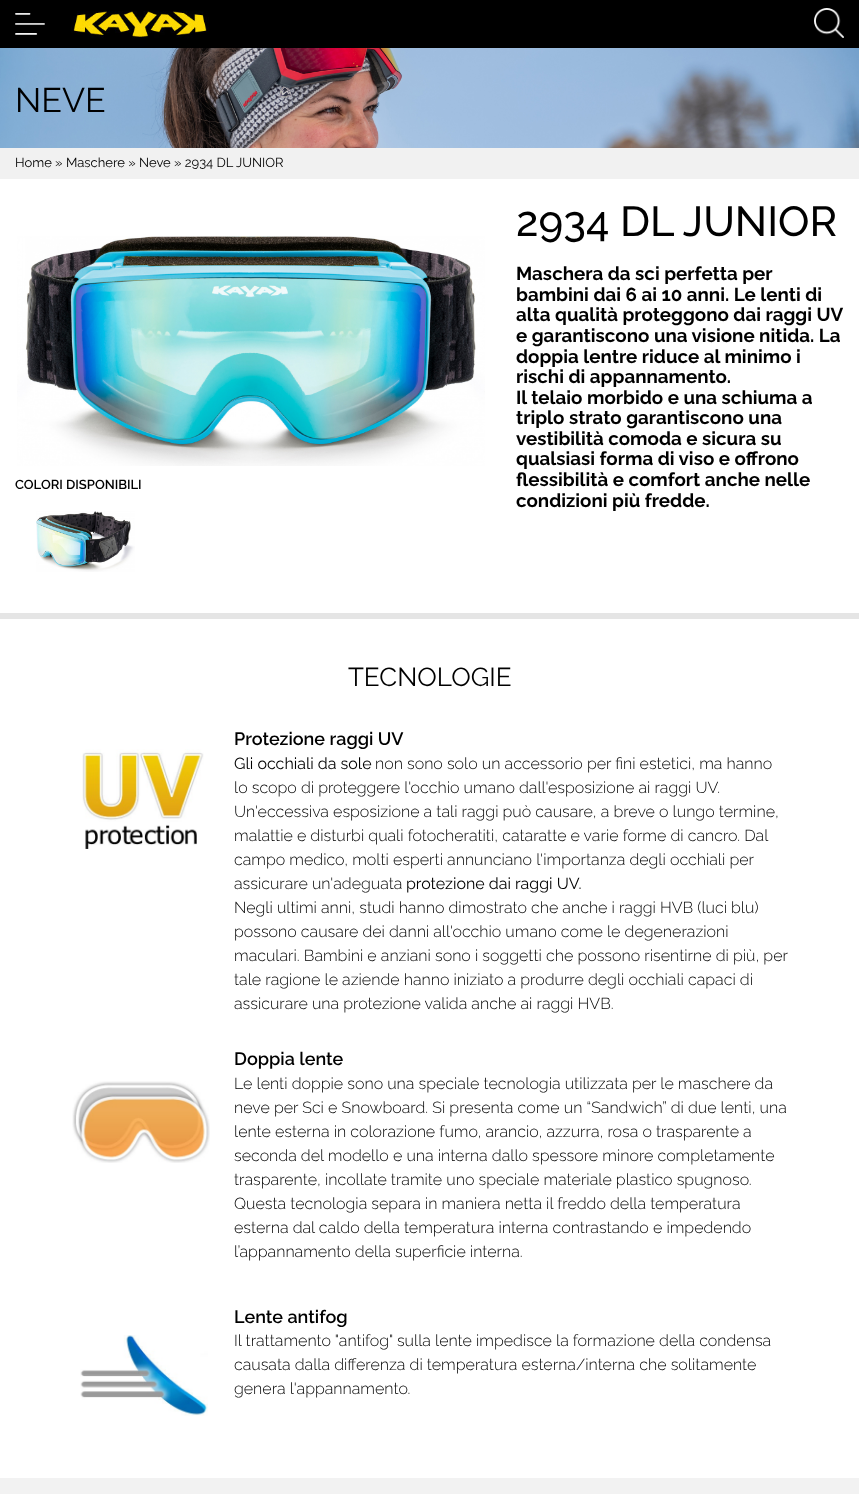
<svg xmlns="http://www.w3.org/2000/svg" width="859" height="1494">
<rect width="100%" height="100%" fill="#fff"/>
<rect width="859" height="48" fill="#000"/>
<image x="15" y="13" width="30" height="22" href="media/1.png"/>
<image x="71" y="11" width="138" height="28" href="media/2.png"/>
<image x="814" y="8" width="30" height="30" href="media/3.png"/>
<image x="0" y="48" width="859" height="100" href="media/4.png"/>
<text x="15" y="112" style="font-family:Raleway;font-size:34px;fill:#000">NEVE</text>
<rect y="148" width="859" height="31" fill="#f1f1f1"/>
<text x="15" y="167" style="font-family:Raleway;font-size:13px;fill:#000">Home » Maschere » Neve » 2934 DL JUNIOR</text>
<rect y="613" width="859" height="6" fill="#e5e5e5"/>
<image x="17" y="236" width="468" height="230" href="media/5.png"/>
<text x="15" y="489" style="font-family:Raleway;font-size:13px;font-weight:600;fill:#000">COLORI DISPONIBILI</text>
<image x="36" y="511" width="99" height="61" href="media/6.png"/>
<text x="516" y="236" style="font-family:Raleway;font-size:42px;font-weight:500;fill:#000">2934 DL JUNIOR</text>
<text x="516" y="280" style="font-family:Raleway;font-size:18.75px;font-weight:bold;fill:#000">Maschera da sci perfetta per</text>
<text x="516" y="301" style="font-family:Raleway;font-size:18.75px;font-weight:bold;fill:#000">bambini dai 6 ai 10 anni. Le lenti di</text>
<text x="516" y="321" style="font-family:Raleway;font-size:18.75px;font-weight:bold;fill:#000">alta qualità proteggono dai raggi UV</text>
<text x="516" y="342" style="font-family:Raleway;font-size:18.75px;font-weight:bold;fill:#000">e garantiscono una visione nitida. La</text>
<text x="516" y="363" style="font-family:Raleway;font-size:18.75px;font-weight:bold;fill:#000">doppia lentre riduce al minimo i</text>
<text x="516" y="383" style="font-family:Raleway;font-size:18.75px;font-weight:bold;fill:#000">rischi di appannamento.</text>
<text x="516" y="404" style="font-family:Raleway;font-size:18.75px;font-weight:bold;fill:#000">Il telaio morbido e una schiuma a</text>
<text x="516" y="424" style="font-family:Raleway;font-size:18.75px;font-weight:bold;fill:#000">triplo strato garantiscono una</text>
<text x="516" y="445" style="font-family:Raleway;font-size:18.75px;font-weight:bold;fill:#000">vestibilità comoda e sicura su</text>
<text x="516" y="465" style="font-family:Raleway;font-size:18.75px;font-weight:bold;fill:#000">qualsiasi forma di viso e offrono</text>
<text x="516" y="486" style="font-family:Raleway;font-size:18.75px;font-weight:bold;fill:#000">flessibilità e comfort anche nelle</text>
<text x="516" y="507" style="font-family:Raleway;font-size:18.75px;font-weight:bold;fill:#000">condizioni più fredde.</text>
<text x="348" y="686" style="font-family:Raleway;font-size:26px;fill:#000">TECNOLOGIE</text>
<image x="82" y="749" width="122" height="100" href="media/7.png"/>
<text x="234" y="745" style="font-family:Raleway;font-size:18px;font-weight:600;fill:#000">Protezione raggi UV</text>
<text x="234" y="769" style="font-family:Raleway;font-size:16px;fill:#000">Gli occhiali da sole</text>
<text x="375" y="769" style="font-family:Raleway;font-size:16px;font-weight:300;fill:#000">non sono solo un accessorio per fini estetici, ma hanno</text>
<text x="234" y="793" style="font-family:Raleway;font-size:16px;font-weight:300;fill:#000">lo scopo di proteggere l'occhio umano dall'esposizione ai raggi UV.</text>
<text x="234" y="817" style="font-family:Raleway;font-size:16px;font-weight:300;fill:#000">Un'eccessiva esposizione a tali raggi può causare, a breve o lungo termine,</text>
<text x="234" y="841" style="font-family:Raleway;font-size:16px;font-weight:300;fill:#000">malattie e disturbi quali fotocheratiti, cataratte e varie forme di cancro. Dal</text>
<text x="234" y="865" style="font-family:Raleway;font-size:16px;font-weight:300;fill:#000">campo medico, molti esperti annunciano l'importanza degli occhiali per</text>
<text x="234" y="889" style="font-family:Raleway;font-size:16px;font-weight:300;fill:#000">assicurare un'adeguata</text>
<text x="406" y="889" style="font-family:Raleway;font-size:16px;fill:#000">protezione dai raggi UV.</text>
<text x="234" y="913" style="font-family:Raleway;font-size:16px;font-weight:300;fill:#000">Negli ultimi anni, studi hanno dimostrato che anche i raggi HVB (luci blu)</text>
<text x="234" y="937" style="font-family:Raleway;font-size:16px;font-weight:300;fill:#000">possono causare dei danni all'occhio umano come le degenerazioni</text>
<text x="234" y="961" style="font-family:Raleway;font-size:16px;font-weight:300;fill:#000">maculari. Bambini e anziani sono i soggetti che possono risentirne di più, per</text>
<text x="234" y="985" style="font-family:Raleway;font-size:16px;font-weight:300;fill:#000">tale ragione le aziende hanno iniziato a produrre degli occhiali capaci di</text>
<text x="234" y="1009" style="font-family:Raleway;font-size:16px;font-weight:300;fill:#000">assicurare una protezione valida anche ai raggi HVB.</text>
<image x="72" y="1081" width="138" height="82" href="media/8.png"/>
<text x="234" y="1065" style="font-family:Raleway;font-size:18px;font-weight:600;fill:#000">Doppia lente</text>
<text x="234" y="1089" style="font-family:Raleway;font-size:16px;font-weight:300;fill:#000">Le lenti doppie sono una speciale tecnologia utilizzata per le maschere da</text>
<text x="234" y="1113" style="font-family:Raleway;font-size:16px;font-weight:300;fill:#000">neve per Sci e Snowboard. Si presenta come un “Sandwich” di due lenti, una</text>
<text x="234" y="1137" style="font-family:Raleway;font-size:16px;font-weight:300;fill:#000">lente esterna in colorazione fumo, arancio, azzurra, rosa o trasparente a</text>
<text x="234" y="1161" style="font-family:Raleway;font-size:16px;font-weight:300;fill:#000">seconda del modello e una interna dallo spessore minore completamente</text>
<text x="234" y="1185" style="font-family:Raleway;font-size:16px;font-weight:300;fill:#000">trasparente, incollate tramite uno speciale materiale plastico spugnoso.</text>
<text x="234" y="1209" style="font-family:Raleway;font-size:16px;font-weight:300;fill:#000">Questa tecnologia separa in maniera netta il freddo della temperatura</text>
<text x="234" y="1233" style="font-family:Raleway;font-size:16px;font-weight:300;fill:#000">esterna dal caldo della temperatura interna contrastando e impedendo</text>
<text x="234" y="1257" style="font-family:Raleway;font-size:16px;font-weight:300;fill:#000">l’appannamento della superficie interna.</text>
<image x="80" y="1335" width="128" height="81" href="media/9.png"/>
<text x="234" y="1323" style="font-family:Raleway;font-size:18px;font-weight:600;fill:#000">Lente antifog</text>
<text x="234" y="1346" style="font-family:Raleway;font-size:16px;font-weight:300;fill:#000">Il trattamento "antifog" sulla lente impedisce la formazione della condensa</text>
<text x="234" y="1370" style="font-family:Raleway;font-size:16px;font-weight:300;fill:#000">causata dalla differenza di temperatura esterna/interna che solitamente</text>
<text x="234" y="1394" style="font-family:Raleway;font-size:16px;font-weight:300;fill:#000">genera l'appannamento.</text>
<rect y="1478" width="859" height="16" fill="#f2f2f2"/>
</svg>
